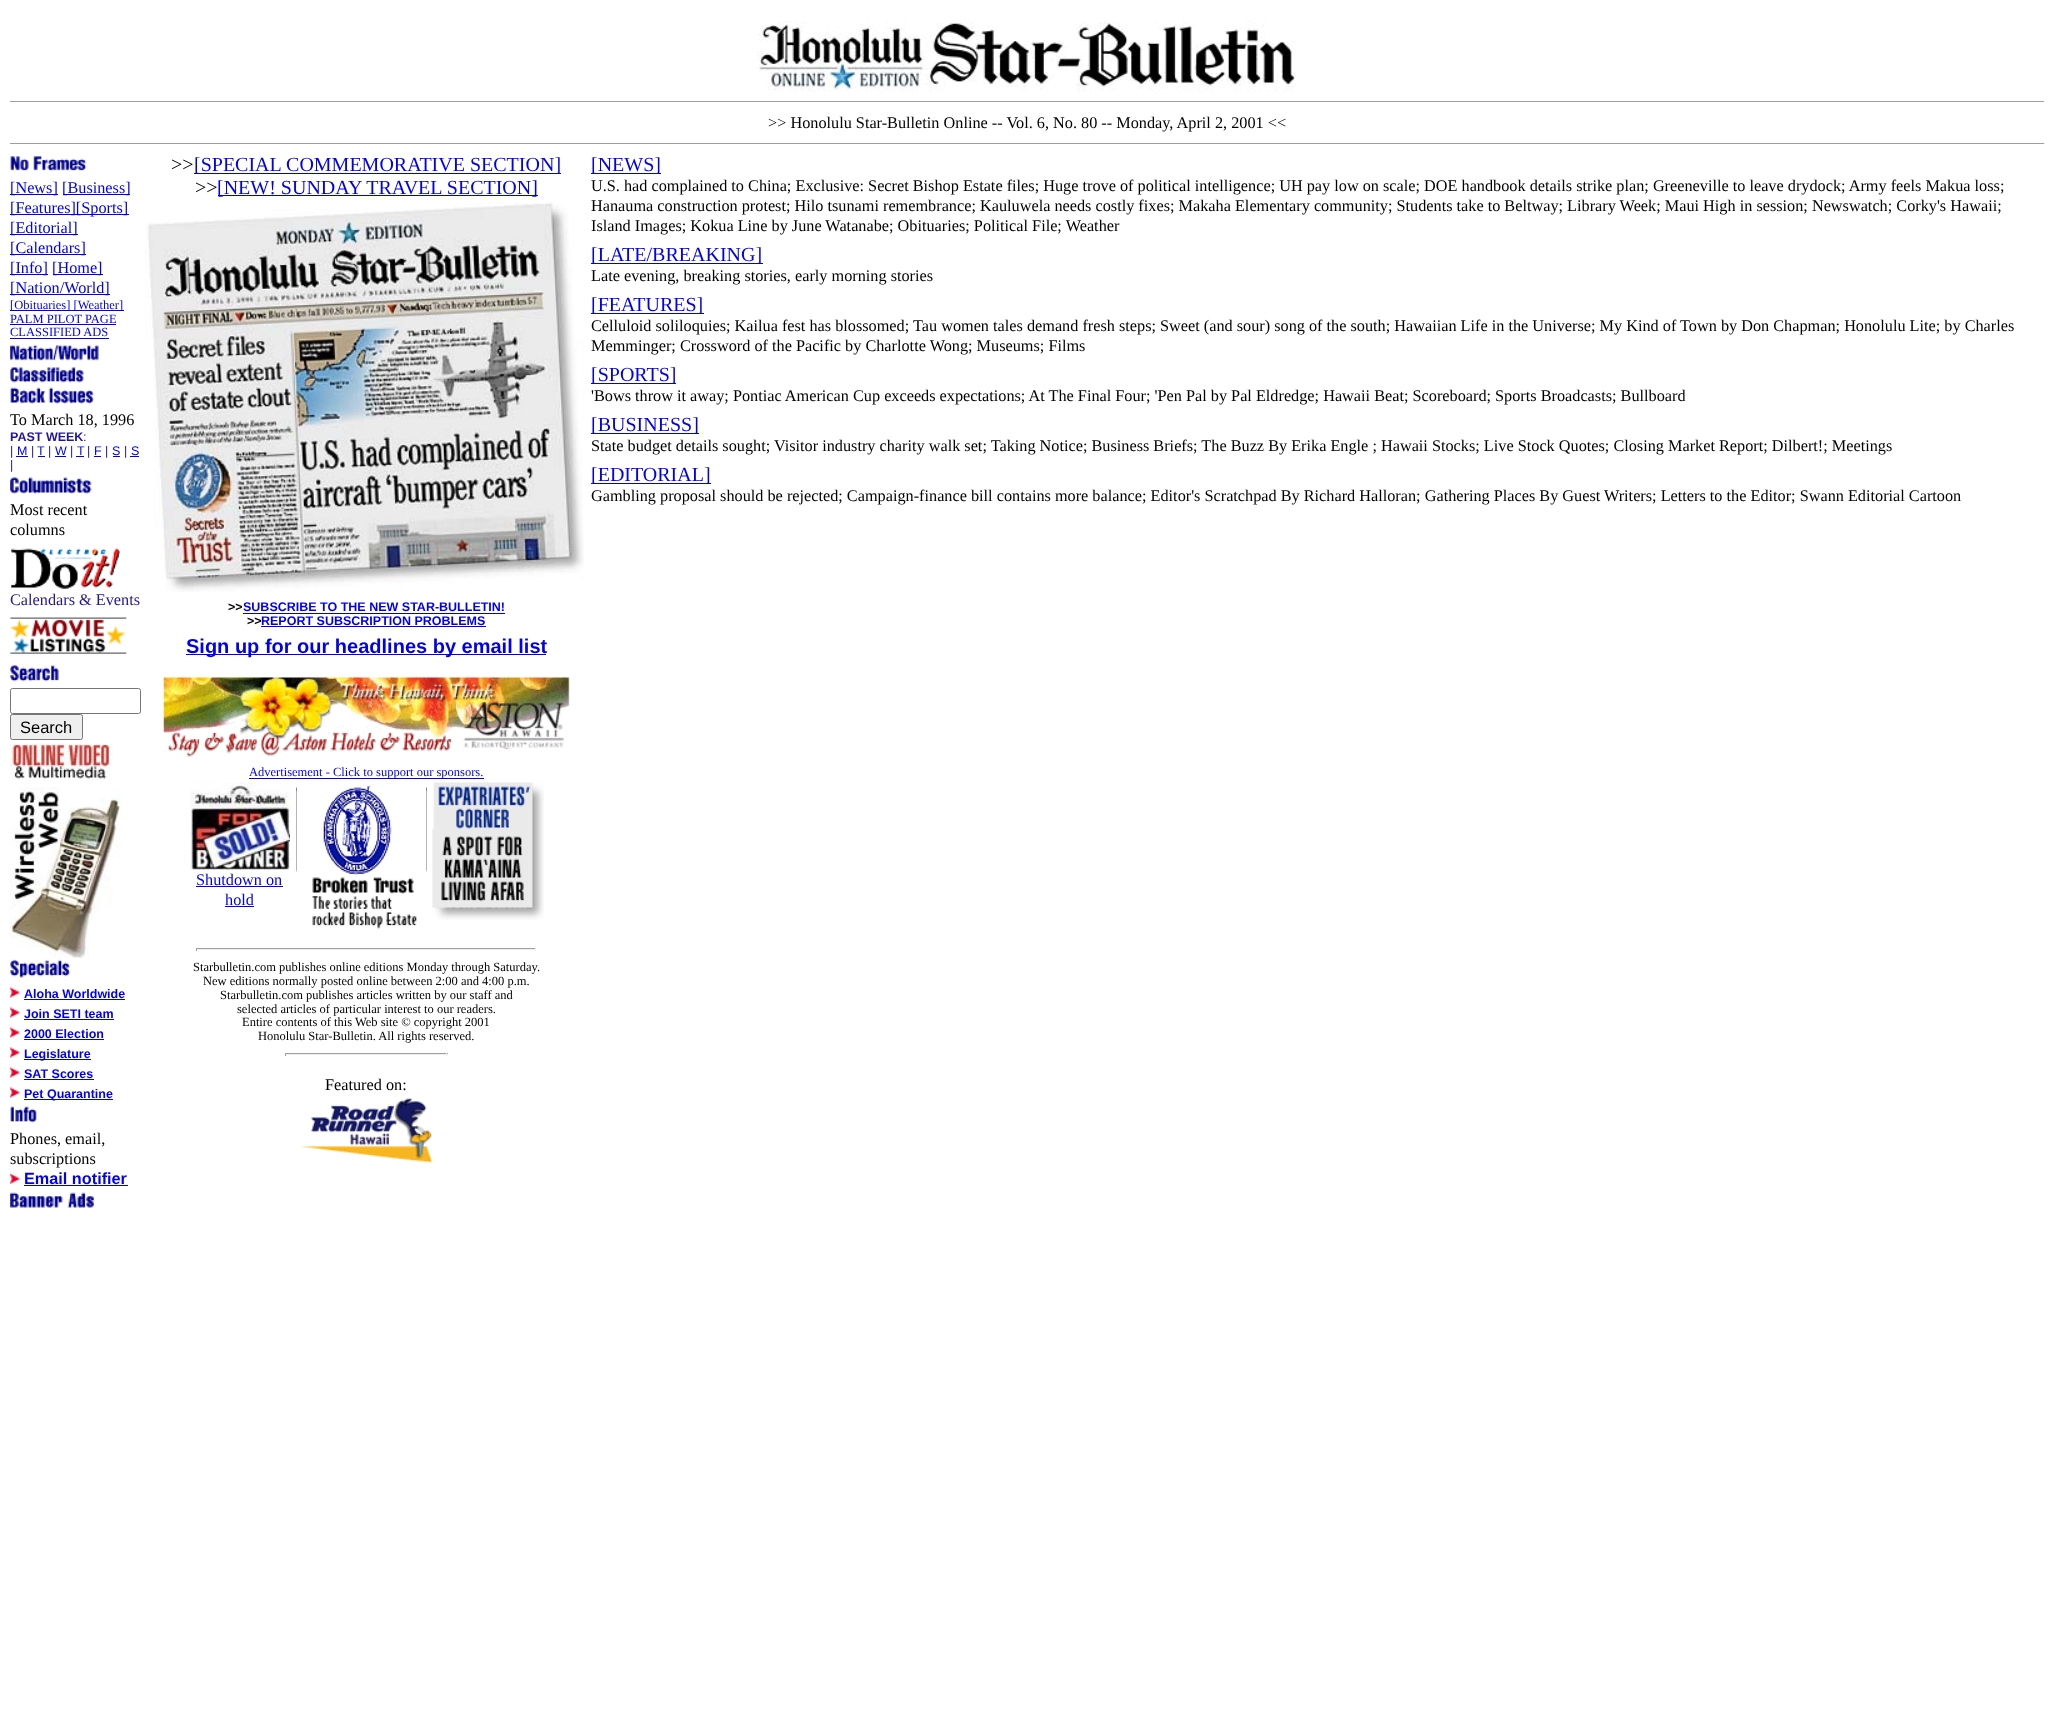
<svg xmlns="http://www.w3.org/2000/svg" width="2055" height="1720">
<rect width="100%" height="100%" fill="#fff"/>
<image x="756" y="21" width="540" height="71" href="media/1.png"/>
<rect x="10" y="101" width="2035" height="1" fill="#9f9f9f"/>
<rect x="2044" y="101" width="1" height="1" fill="#eee"/>
<text x="768" y="128" style="font-family:Liberation Serif;font-size:16.25px;fill:#000">&gt;&gt; Honolulu Star-Bulletin Online -- Vol. 6, No. 80 -- Monday, April 2, 2001 &lt;&lt;</text>
<rect x="10" y="143" width="2035" height="1" fill="#9f9f9f"/>
<rect x="2044" y="143" width="1" height="1" fill="#eee"/>
<image x="10" y="156" width="77" height="15" href="media/2.png"/>
<rect x="10" y="194" width="48" height="1" fill="#00e"/>
<text x="10" y="193" style="font-family:Liberation Serif;font-size:16.25px;fill:#00e">[News]</text>
<rect x="63" y="194" width="67" height="1" fill="#00e"/>
<text x="62" y="193" style="font-family:Liberation Serif;font-size:16.25px;fill:#00e">[Business]</text>
<rect x="10" y="214" width="119" height="1" fill="#00e"/>
<text x="10" y="213" style="font-family:Liberation Serif;font-size:16.25px;fill:#00e">[Features][Sports]</text>
<rect x="10" y="234" width="68" height="1" fill="#00e"/>
<text x="10" y="233" style="font-family:Liberation Serif;font-size:16.25px;fill:#00e">[Editorial]</text>
<rect x="10" y="254" width="76" height="1" fill="#00e"/>
<text x="10" y="253" style="font-family:Liberation Serif;font-size:16.25px;fill:#00e">[Calendars]</text>
<rect x="53" y="274" width="50" height="1" fill="#00e"/>
<text x="52" y="273" style="font-family:Liberation Serif;font-size:16.25px;fill:#00e">[Home]</text>
<rect x="10" y="294" width="100" height="1" fill="#00e"/>
<text x="10" y="293" style="font-family:Liberation Serif;font-size:16.25px;fill:#00e">[Nation/World]</text>
<rect x="10" y="310" width="114" height="1" fill="#00e"/>
<text x="10" y="309" style="font-family:Liberation Serif;font-size:12.5px;fill:#00e">[Obituaries] [Weather]</text>
<text x="10" y="323" style="font-family:Liberation Serif;font-size:12.5px;fill:#00e">PALM PILOT PAGE</text>
<rect x="10" y="324" width="106" height="1" fill="#00e"/>
<text x="10" y="336" style="font-family:Liberation Serif;font-size:12.5px;fill:#00e">CLASSIFIED ADS</text>
<rect x="10" y="338" width="99" height="1" fill="#00e"/>
<image x="10" y="344" width="89" height="17" href="media/3.png"/>
<image x="10" y="367" width="74" height="16" href="media/4.png"/>
<image x="10" y="387" width="84" height="17" href="media/5.png"/>
<text x="10" y="425" style="font-family:Liberation Serif;font-size:16.25px;fill:#000">To March 18, 1996</text>
<text x="10" y="441" style="font-family:Liberation Sans;font-size:12.5px;font-weight:bold;fill:#21159c">PAST WEEK</text>
<text x="83" y="441" style="font-family:Liberation Sans;font-size:12.5px;fill:#21159c">:</text>
<text x="10" y="455" style="font-family:Liberation Sans;font-size:12.5px;fill:#21159c">|</text>
<text x="17" y="455" style="font-family:Liberation Sans;font-size:12.5px;fill:#00e">M</text>
<rect x="16" y="456" width="12" height="1" fill="#00e"/>
<text x="31" y="455" style="font-family:Liberation Sans;font-size:12.5px;fill:#21159c">|</text>
<text x="37" y="455" style="font-family:Liberation Sans;font-size:12.5px;fill:#00e">T</text>
<rect x="38" y="456" width="7" height="1" fill="#00e"/>
<text x="48" y="455" style="font-family:Liberation Sans;font-size:12.5px;fill:#21159c">|</text>
<text x="55" y="455" style="font-family:Liberation Sans;font-size:12.5px;fill:#00e">W</text>
<rect x="55" y="456" width="11" height="1" fill="#00e"/>
<text x="70" y="455" style="font-family:Liberation Sans;font-size:12.5px;fill:#21159c">|</text>
<text x="77" y="455" style="font-family:Liberation Sans;font-size:12.5px;fill:#00e">T</text>
<rect x="76" y="456" width="8" height="1" fill="#00e"/>
<text x="87" y="455" style="font-family:Liberation Sans;font-size:12.5px;fill:#21159c">|</text>
<text x="94" y="455" style="font-family:Liberation Sans;font-size:12.5px;fill:#00e">F</text>
<rect x="94" y="456" width="7" height="1" fill="#00e"/>
<text x="105" y="455" style="font-family:Liberation Sans;font-size:12.5px;fill:#21159c">|</text>
<text x="112" y="455" style="font-family:Liberation Sans;font-size:12.5px;fill:#00e">S</text>
<rect x="113" y="456" width="7" height="1" fill="#00e"/>
<text x="124" y="455" style="font-family:Liberation Sans;font-size:12.5px;fill:#21159c">|</text>
<text x="131" y="455" style="font-family:Liberation Sans;font-size:12.5px;fill:#00e">S</text>
<rect x="130" y="456" width="9" height="1" fill="#00e"/>
<text x="10" y="469" style="font-family:Liberation Sans;font-size:12.5px;fill:#21159c">|</text>
<image x="10" y="477" width="82" height="17" href="media/6.png"/>
<text x="10" y="515" style="font-family:Liberation Serif;font-size:16.25px;fill:#000">Most recent</text>
<text x="10" y="535" style="font-family:Liberation Serif;font-size:16.25px;fill:#000">columns</text>
<image x="11" y="548" width="109" height="41" href="media/7.png"/>
<text x="10" y="605" style="font-family:Liberation Serif;font-size:16.25px;fill:#21159c">Calendars &amp; Events</text>
<image x="10" y="617" width="117" height="37" href="media/8.png"/>
<image x="10" y="664" width="49" height="18" href="media/9.png"/>
<rect x="10.5" y="688.5" width="130" height="25" rx="2" fill="none" stroke="#767676"/>
<rect x="10.5" y="714.5" width="72" height="25" rx="2" fill="#efefef" stroke="#767676"/>
<text x="20" y="733" style="font-family:Liberation Sans;font-size:16.5px;fill:#000">Search</text>
<image x="10" y="743" width="103" height="37" href="media/10.png"/>
<image x="10" y="787" width="113" height="171" href="media/11.png"/>
<image x="10" y="959" width="61" height="19" href="media/12.png"/>
<image x="10" y="987" width="10" height="11" href="media/13.png"/>
<text x="24" y="998" style="font-family:Liberation Sans;font-size:12.5px;font-weight:bold;fill:#00e">Aloha Worldwide</text>
<rect x="24" y="999" width="101" height="1" fill="#00e"/>
<image x="10" y="1007" width="10" height="11" href="media/13.png"/>
<text x="24" y="1018" style="font-family:Liberation Sans;font-size:12.5px;font-weight:bold;fill:#00e">Join SETI team</text>
<rect x="24" y="1019" width="90" height="1" fill="#00e"/>
<image x="10" y="1027" width="10" height="11" href="media/13.png"/>
<text x="24" y="1038" style="font-family:Liberation Sans;font-size:12.5px;font-weight:bold;fill:#00e">2000 Election</text>
<rect x="24" y="1039" width="80" height="1" fill="#00e"/>
<image x="10" y="1047" width="10" height="11" href="media/13.png"/>
<rect x="24" y="1059" width="67" height="1" fill="#00e"/>
<text x="24" y="1058" style="font-family:Liberation Sans;font-size:12.5px;font-weight:bold;fill:#00e">Legislature</text>
<image x="10" y="1067" width="10" height="11" href="media/13.png"/>
<text x="24" y="1078" style="font-family:Liberation Sans;font-size:12.5px;font-weight:bold;fill:#00e">SAT Scores</text>
<rect x="24" y="1079" width="70" height="1" fill="#00e"/>
<image x="10" y="1087" width="10" height="11" href="media/13.png"/>
<rect x="24" y="1099" width="89" height="1" fill="#00e"/>
<text x="24" y="1098" style="font-family:Liberation Sans;font-size:12.5px;font-weight:bold;fill:#00e">Pet Quarantine</text>
<image x="10" y="1106" width="27" height="17" href="media/14.png"/>
<text x="10" y="1144" style="font-family:Liberation Serif;font-size:16.25px;fill:#000">Phones, email,</text>
<text x="10" y="1164" style="font-family:Liberation Serif;font-size:16.25px;fill:#000">subscriptions</text>
<image x="10" y="1173" width="10" height="11" href="media/15.png"/>
<text x="24" y="1184" style="font-family:Liberation Sans;font-size:16.25px;font-weight:bold;fill:#00e">Email notifier</text>
<rect x="24" y="1185" width="104" height="1" fill="#00e"/>
<image x="10" y="1192" width="84" height="16" href="media/16.png"/>
<rect x="10" y="274" width="38" height="1" fill="#00e"/>
<text x="10" y="273" style="font-family:Liberation Serif;font-size:16.25px;fill:#00e">[Info]</text>
<text x="171" y="171" style="font-family:Liberation Serif;font-size:20px;fill:#000">&gt;&gt;</text>
<rect x="194" y="173" width="367" height="1" fill="#00e"/>
<text x="194" y="171" style="font-family:Liberation Serif;font-size:20px;fill:#00e">[SPECIAL COMMEMORATIVE SECTION]</text>
<text x="195" y="194" style="font-family:Liberation Serif;font-size:20px;fill:#000">&gt;&gt;</text>
<rect x="218" y="195" width="320" height="1" fill="#00e"/>
<text x="217" y="194" style="font-family:Liberation Serif;font-size:20px;fill:#00e">[NEW! SUNDAY TRAVEL SECTION]</text>
<image x="145" y="202" width="439" height="390" href="media/17.png"/>
<text x="228" y="611" style="font-family:Liberation Sans;font-size:12.5px;font-weight:bold;fill:#000">&gt;&gt;</text>
<rect x="243" y="613" width="262" height="1" fill="#00e"/>
<text x="243" y="611" style="font-family:Liberation Sans;font-size:12.5px;font-weight:bold;fill:#00e">SUBSCRIBE TO THE NEW STAR-BULLETIN!</text>
<text x="247" y="625" style="font-family:Liberation Sans;font-size:12.5px;font-weight:bold;fill:#000">&gt;&gt;</text>
<rect x="261" y="626" width="225" height="1" fill="#00e"/>
<text x="261" y="625" style="font-family:Liberation Sans;font-size:12.5px;font-weight:bold;fill:#00e">REPORT SUBSCRIPTION PROBLEMS</text>
<rect x="186" y="654" width="360" height="1" fill="#00e"/>
<text x="186" y="653" style="font-family:Liberation Sans;font-size:20px;font-weight:bold;fill:#00e">Sign up for our headlines by email list</text>
<image x="163" y="677" width="407" height="81" href="media/18.png"/>
<rect x="249" y="778" width="235" height="1" fill="#00e"/>
<text x="249" y="776" style="font-family:Liberation Serif;font-size:12.5px;fill:#00e">Advertisement - Click to support our sponsors.</text>
<image x="296" y="787" width="1" height="85" href="media/19.png"/>
<image x="312" y="785" width="105" height="144" href="media/20.png"/>
<image x="426" y="787" width="1" height="85" href="media/19.png"/>
<image x="432" y="782" width="112" height="138" href="media/21.png"/>
<image x="190" y="782" width="100" height="88" href="media/22.png"/>
<text x="196" y="885" style="font-family:Liberation Serif;font-size:16.25px;fill:#00e">Shutdown on</text>
<rect x="196" y="886" width="87" height="1" fill="#00e"/>
<text x="225" y="905" style="font-family:Liberation Serif;font-size:16.25px;fill:#00e">hold</text>
<rect x="225" y="906" width="29" height="1" fill="#00e"/>
<rect x="196" y="948" width="340" height="1" fill="#9f9f9f"/>
<rect x="535" y="948" width="1" height="3" fill="#eee"/>
<rect x="196" y="949" width="340" height="1" fill="#eee"/>
<rect x="196" y="948" width="1" height="3" fill="#9f9f9f"/>
<text x="193" y="971" style="font-family:Liberation Serif;font-size:12.5px;fill:#000">Starbulletin.com publishes online editions Monday through Saturday.</text>
<text x="203" y="985" style="font-family:Liberation Serif;font-size:12.5px;fill:#000">New editions normally posted online between 2:00 and 4:00 p.m.</text>
<text x="220" y="999" style="font-family:Liberation Serif;font-size:12.5px;fill:#000">Starbulletin.com publishes articles written by our staff and</text>
<text x="237" y="1013" style="font-family:Liberation Serif;font-size:12.5px;fill:#000">selected articles of particular interest to our readers.</text>
<text x="242" y="1026" style="font-family:Liberation Serif;font-size:12.5px;fill:#000">Entire contents of this Web site © copyright 2001</text>
<text x="258" y="1040" style="font-family:Liberation Serif;font-size:12.5px;fill:#000">Honolulu Star-Bulletin. All rights reserved.</text>
<rect x="285" y="1053" width="163" height="1" fill="#9f9f9f"/>
<rect x="446" y="1053" width="1" height="3" fill="#eee"/>
<rect x="285" y="1054" width="163" height="1" fill="#eee"/>
<rect x="285" y="1053" width="1" height="3" fill="#9f9f9f"/>
<text x="325" y="1090" style="font-family:Liberation Serif;font-size:16.25px;fill:#000">Featured on:</text>
<image x="300" y="1098" width="133" height="65" href="media/23.png"/>
<rect x="591" y="173" width="70" height="1" fill="#00e"/>
<text x="591" y="171" style="font-family:Liberation Serif;font-size:20px;fill:#00e">[NEWS]</text>
<text x="591" y="191" style="font-family:Liberation Serif;font-size:16.25px;fill:#000">U.S. had complained to China; Exclusive: Secret Bishop Estate files; Huge trove of political intelligence; UH pay low on scale; DOE handbook details strike plan; Greeneville to leave drydock; Army feels Makua loss;</text>
<text x="591" y="211" style="font-family:Liberation Serif;font-size:16.25px;fill:#000">Hanauma construction protest; Hilo tsunami remembrance; Kauluwela needs costly fixes; Makaha Elementary community; Students take to Beltway; Library Week; Maui High in session; Newswatch; Corky's Hawaii;</text>
<text x="591" y="231" style="font-family:Liberation Serif;font-size:16.25px;fill:#000">Island Images; Kokua Line by June Watanabe; Obituaries; Political File; Weather</text>
<rect x="591" y="263" width="172" height="1" fill="#00e"/>
<text x="591" y="261" style="font-family:Liberation Serif;font-size:20px;fill:#00e">[LATE/BREAKING]</text>
<text x="591" y="281" style="font-family:Liberation Serif;font-size:16.25px;fill:#000">Late evening, breaking stories, early morning stories</text>
<rect x="591" y="313" width="113" height="1" fill="#00e"/>
<text x="591" y="311" style="font-family:Liberation Serif;font-size:20px;fill:#00e">[FEATURES]</text>
<text x="591" y="331" style="font-family:Liberation Serif;font-size:16.25px;fill:#000">Celluloid soliloquies; Kailua fest has blossomed; Tau women tales demand fresh steps; Sweet (and sour) song of the south; Hawaiian Life in the Universe; My Kind of Town by Don Chapman; Honolulu Lite; by Charles</text>
<text x="591" y="351" style="font-family:Liberation Serif;font-size:16.25px;fill:#000">Memminger; Crossword of the Pacific by Charlotte Wong; Museums; Films</text>
<rect x="591" y="383" width="85" height="1" fill="#00e"/>
<text x="591" y="381" style="font-family:Liberation Serif;font-size:20px;fill:#00e">[SPORTS]</text>
<text x="591" y="401" style="font-family:Liberation Serif;font-size:16.25px;fill:#000">'Bows throw it away; Pontiac American Cup exceeds expectations; At The Final Four; 'Pen Pal by Pal Eldredge; Hawaii Beat; Scoreboard; Sports Broadcasts; Bullboard</text>
<rect x="591" y="433" width="108" height="1" fill="#00e"/>
<text x="591" y="431" style="font-family:Liberation Serif;font-size:20px;fill:#00e">[BUSINESS]</text>
<text x="591" y="451" style="font-family:Liberation Serif;font-size:16.25px;fill:#000">State budget details sought; Visitor industry charity walk set; Taking Notice; Business Briefs; The Buzz By Erika Engle ; Hawaii Stocks; Live Stock Quotes; Closing Market Report; Dilbert!; Meetings</text>
<rect x="591" y="483" width="120" height="1" fill="#00e"/>
<text x="591" y="481" style="font-family:Liberation Serif;font-size:20px;fill:#00e">[EDITORIAL]</text>
<text x="591" y="501" style="font-family:Liberation Serif;font-size:16.25px;fill:#000">Gambling proposal should be rejected; Campaign-finance bill contains more balance; Editor's Scratchpad By Richard Halloran; Gathering Places By Guest Writers; Letters to the Editor; Swann Editorial Cartoon</text>
</svg>
